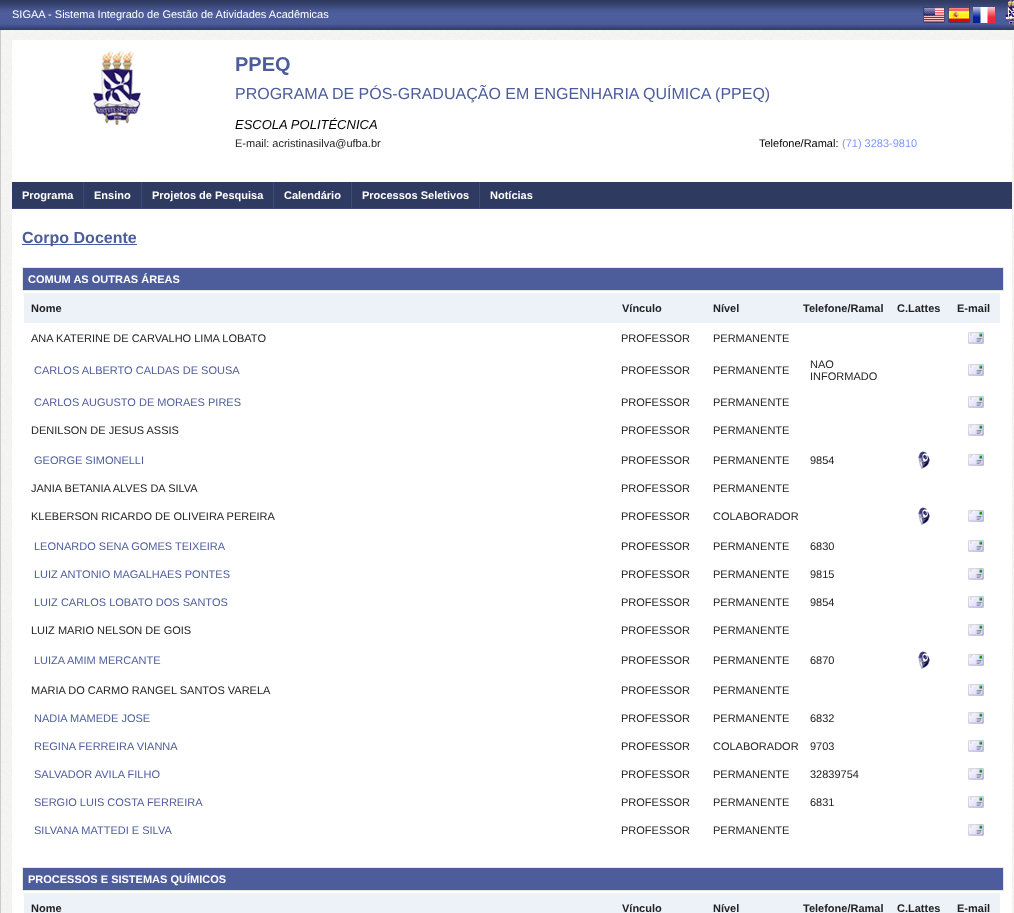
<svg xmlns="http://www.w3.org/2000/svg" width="1014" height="913">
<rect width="100%" height="100%" fill="#fff"/>
<image x="0" y="0" width="1014" height="30" href="media/1.png"/>
<text x="12" y="18" style="font-family:Liberation Sans;font-size:11px;fill:#fff">SIGAA - Sistema Integrado de Gestão de Atividades Acadêmicas</text>
<image x="923" y="7" width="22" height="16" href="media/2.png"/>
<image x="948" y="7" width="22" height="16" href="media/3.png"/>
<image x="973" y="7" width="22" height="16" href="media/4.png"/>
<image x="1005" y="0" width="9" height="25" href="media/5.png"/>
<image x="1" y="30" width="1013" height="883" href="media/6.png"/>
<rect y="30" width="1" height="883" fill="#cacac7"/>
<rect x="12" y="40" width="1000" height="873" fill="#fff"/>
<image x="93" y="50" width="48" height="75" href="media/7.png"/>
<text x="235" y="71" style="font-family:Liberation Sans;font-size:20px;font-weight:bold;fill:#4d5d9c">PPEQ</text>
<text x="235" y="99" style="font-family:Liberation Sans;font-size:16px;fill:#4d5d9c">PROGRAMA DE PÓS-GRADUAÇÃO EM ENGENHARIA QUÍMICA (PPEQ)</text>
<text x="235" y="129" style="font-family:Liberation Sans;font-size:13px;font-style:italic;fill:#000">ESCOLA POLITÉCNICA</text>
<text x="235" y="147" style="font-family:Liberation Sans;font-size:11px;fill:#222">E-mail: acristinasilva@ufba.br</text>
<text x="759" y="147" style="font-family:Liberation Sans;font-size:11px;fill:#000">Telefone/Ramal:</text>
<text x="842" y="147" style="font-family:Liberation Sans;font-size:11px;fill:#7d97fe">(71) 3283-9810</text>
<rect x="12" y="182" width="1000" height="26" fill="#2f3a60"/>
<rect x="12" y="208" width="1000" height="1" fill="#3b4878"/>
<text x="22" y="199" style="font-family:Liberation Sans;font-size:11px;font-weight:bold;fill:#fff">Programa</text>
<rect x="83" y="182" width="1" height="27" fill="#3b4878"/>
<text x="94" y="199" style="font-family:Liberation Sans;font-size:11px;font-weight:bold;fill:#fff">Ensino</text>
<rect x="141" y="182" width="1" height="27" fill="#3b4878"/>
<text x="152" y="199" style="font-family:Liberation Sans;font-size:11px;font-weight:bold;fill:#fff">Projetos de Pesquisa</text>
<rect x="273" y="182" width="1" height="27" fill="#3b4878"/>
<text x="284" y="199" style="font-family:Liberation Sans;font-size:11px;font-weight:bold;fill:#fff">Calendário</text>
<rect x="351" y="182" width="1" height="27" fill="#3b4878"/>
<text x="362" y="199" style="font-family:Liberation Sans;font-size:11px;font-weight:bold;fill:#fff">Processos Seletivos</text>
<rect x="479" y="182" width="1" height="27" fill="#3b4878"/>
<text x="490" y="199" style="font-family:Liberation Sans;font-size:11px;font-weight:bold;fill:#fff">Notícias</text>
<rect x="22" y="244" width="115" height="1" fill="#4d5d9c"/>
<text x="22" y="243" style="font-family:Liberation Sans;font-size:16px;font-weight:bold;fill:#4d5d9c">Corpo Docente</text>
<rect x="22.5" y="267.5" width="981" height="23" fill="none" stroke="#e7e7e7"/>
<rect x="23" y="268" width="980" height="22" fill="#4d5d9c"/>
<text x="28" y="283" style="font-family:Liberation Sans;font-size:11px;font-weight:bold;fill:#fff">COMUM AS OUTRAS ÁREAS</text>
<rect x="24" y="293" width="976" height="30" fill="#edf1f8"/>
<text x="31" y="312" style="font-family:Liberation Sans;font-size:11px;font-weight:bold;fill:#222">Nome</text>
<text x="622" y="312" style="font-family:Liberation Sans;font-size:11px;font-weight:bold;fill:#222">Vínculo</text>
<text x="713" y="312" style="font-family:Liberation Sans;font-size:11px;font-weight:bold;fill:#222">Nível</text>
<text x="803" y="312" style="font-family:Liberation Sans;font-size:11px;font-weight:bold;fill:#222">Telefone/Ramal</text>
<text x="897" y="312" style="font-family:Liberation Sans;font-size:11px;font-weight:bold;fill:#222">C.Lattes</text>
<text x="957" y="312" style="font-family:Liberation Sans;font-size:11px;font-weight:bold;fill:#222">E-mail</text>
<text x="31" y="342" style="font-family:Liberation Sans;font-size:11px;fill:#222">ANA KATERINE DE CARVALHO LIMA LOBATO</text>
<text x="621" y="342" style="font-family:Liberation Sans;font-size:11px;fill:#222">PROFESSOR</text>
<text x="713" y="342" style="font-family:Liberation Sans;font-size:11px;fill:#222">PERMANENTE</text>
<image x="968" y="332" width="16" height="12" href="media/8.png"/>
<text x="34" y="374" style="font-family:Liberation Sans;font-size:11px;fill:#4d5d9c">CARLOS ALBERTO CALDAS DE SOUSA</text>
<text x="621" y="374" style="font-family:Liberation Sans;font-size:11px;fill:#222">PROFESSOR</text>
<text x="713" y="374" style="font-family:Liberation Sans;font-size:11px;fill:#222">PERMANENTE</text>
<text x="810" y="368" style="font-family:Liberation Sans;font-size:11px;fill:#222">NAO</text>
<text x="810" y="380" style="font-family:Liberation Sans;font-size:11px;fill:#222">INFORMADO</text>
<image x="968" y="364" width="16" height="12" href="media/8.png"/>
<text x="34" y="406" style="font-family:Liberation Sans;font-size:11px;fill:#4d5d9c">CARLOS AUGUSTO DE MORAES PIRES</text>
<text x="621" y="406" style="font-family:Liberation Sans;font-size:11px;fill:#222">PROFESSOR</text>
<text x="713" y="406" style="font-family:Liberation Sans;font-size:11px;fill:#222">PERMANENTE</text>
<image x="968" y="396" width="16" height="12" href="media/8.png"/>
<text x="31" y="434" style="font-family:Liberation Sans;font-size:11px;fill:#222">DENILSON DE JESUS ASSIS</text>
<text x="621" y="434" style="font-family:Liberation Sans;font-size:11px;fill:#222">PROFESSOR</text>
<text x="713" y="434" style="font-family:Liberation Sans;font-size:11px;fill:#222">PERMANENTE</text>
<image x="968" y="424" width="16" height="12" href="media/8.png"/>
<text x="34" y="464" style="font-family:Liberation Sans;font-size:11px;fill:#4d5d9c">GEORGE SIMONELLI</text>
<text x="621" y="464" style="font-family:Liberation Sans;font-size:11px;fill:#222">PROFESSOR</text>
<text x="713" y="464" style="font-family:Liberation Sans;font-size:11px;fill:#222">PERMANENTE</text>
<text x="810" y="464" style="font-family:Liberation Sans;font-size:11px;fill:#222">9854</text>
<image x="918" y="451" width="12" height="18" href="media/9.png"/>
<image x="968" y="454" width="16" height="12" href="media/8.png"/>
<text x="31" y="492" style="font-family:Liberation Sans;font-size:11px;fill:#222">JANIA BETANIA ALVES DA SILVA</text>
<text x="621" y="492" style="font-family:Liberation Sans;font-size:11px;fill:#222">PROFESSOR</text>
<text x="713" y="492" style="font-family:Liberation Sans;font-size:11px;fill:#222">PERMANENTE</text>
<text x="31" y="520" style="font-family:Liberation Sans;font-size:11px;fill:#222">KLEBERSON RICARDO DE OLIVEIRA PEREIRA</text>
<text x="621" y="520" style="font-family:Liberation Sans;font-size:11px;fill:#222">PROFESSOR</text>
<text x="713" y="520" style="font-family:Liberation Sans;font-size:11px;fill:#222">COLABORADOR</text>
<image x="918" y="507" width="12" height="18" href="media/9.png"/>
<image x="968" y="510" width="16" height="12" href="media/8.png"/>
<text x="34" y="550" style="font-family:Liberation Sans;font-size:11px;fill:#4d5d9c">LEONARDO SENA GOMES TEIXEIRA</text>
<text x="621" y="550" style="font-family:Liberation Sans;font-size:11px;fill:#222">PROFESSOR</text>
<text x="713" y="550" style="font-family:Liberation Sans;font-size:11px;fill:#222">PERMANENTE</text>
<text x="810" y="550" style="font-family:Liberation Sans;font-size:11px;fill:#222">6830</text>
<image x="968" y="540" width="16" height="12" href="media/8.png"/>
<text x="34" y="578" style="font-family:Liberation Sans;font-size:11px;fill:#4d5d9c">LUIZ ANTONIO MAGALHAES PONTES</text>
<text x="621" y="578" style="font-family:Liberation Sans;font-size:11px;fill:#222">PROFESSOR</text>
<text x="713" y="578" style="font-family:Liberation Sans;font-size:11px;fill:#222">PERMANENTE</text>
<text x="810" y="578" style="font-family:Liberation Sans;font-size:11px;fill:#222">9815</text>
<image x="968" y="568" width="16" height="12" href="media/8.png"/>
<text x="34" y="606" style="font-family:Liberation Sans;font-size:11px;fill:#4d5d9c">LUIZ CARLOS LOBATO DOS SANTOS</text>
<text x="621" y="606" style="font-family:Liberation Sans;font-size:11px;fill:#222">PROFESSOR</text>
<text x="713" y="606" style="font-family:Liberation Sans;font-size:11px;fill:#222">PERMANENTE</text>
<text x="810" y="606" style="font-family:Liberation Sans;font-size:11px;fill:#222">9854</text>
<image x="968" y="596" width="16" height="12" href="media/8.png"/>
<text x="31" y="634" style="font-family:Liberation Sans;font-size:11px;fill:#222">LUIZ MARIO NELSON DE GOIS</text>
<text x="621" y="634" style="font-family:Liberation Sans;font-size:11px;fill:#222">PROFESSOR</text>
<text x="713" y="634" style="font-family:Liberation Sans;font-size:11px;fill:#222">PERMANENTE</text>
<image x="968" y="624" width="16" height="12" href="media/8.png"/>
<text x="34" y="664" style="font-family:Liberation Sans;font-size:11px;fill:#4d5d9c">LUIZA AMIM MERCANTE</text>
<text x="621" y="664" style="font-family:Liberation Sans;font-size:11px;fill:#222">PROFESSOR</text>
<text x="713" y="664" style="font-family:Liberation Sans;font-size:11px;fill:#222">PERMANENTE</text>
<text x="810" y="664" style="font-family:Liberation Sans;font-size:11px;fill:#222">6870</text>
<image x="918" y="651" width="12" height="18" href="media/9.png"/>
<image x="968" y="654" width="16" height="12" href="media/8.png"/>
<text x="31" y="694" style="font-family:Liberation Sans;font-size:11px;fill:#222">MARIA DO CARMO RANGEL SANTOS VARELA</text>
<text x="621" y="694" style="font-family:Liberation Sans;font-size:11px;fill:#222">PROFESSOR</text>
<text x="713" y="694" style="font-family:Liberation Sans;font-size:11px;fill:#222">PERMANENTE</text>
<image x="968" y="684" width="16" height="12" href="media/8.png"/>
<text x="34" y="722" style="font-family:Liberation Sans;font-size:11px;fill:#4d5d9c">NADIA MAMEDE JOSE</text>
<text x="621" y="722" style="font-family:Liberation Sans;font-size:11px;fill:#222">PROFESSOR</text>
<text x="713" y="722" style="font-family:Liberation Sans;font-size:11px;fill:#222">PERMANENTE</text>
<text x="810" y="722" style="font-family:Liberation Sans;font-size:11px;fill:#222">6832</text>
<image x="968" y="712" width="16" height="12" href="media/8.png"/>
<text x="34" y="750" style="font-family:Liberation Sans;font-size:11px;fill:#4d5d9c">REGINA FERREIRA VIANNA</text>
<text x="621" y="750" style="font-family:Liberation Sans;font-size:11px;fill:#222">PROFESSOR</text>
<text x="713" y="750" style="font-family:Liberation Sans;font-size:11px;fill:#222">COLABORADOR</text>
<text x="810" y="750" style="font-family:Liberation Sans;font-size:11px;fill:#222">9703</text>
<image x="968" y="740" width="16" height="12" href="media/8.png"/>
<text x="34" y="778" style="font-family:Liberation Sans;font-size:11px;fill:#4d5d9c">SALVADOR AVILA FILHO</text>
<text x="621" y="778" style="font-family:Liberation Sans;font-size:11px;fill:#222">PROFESSOR</text>
<text x="713" y="778" style="font-family:Liberation Sans;font-size:11px;fill:#222">PERMANENTE</text>
<text x="810" y="778" style="font-family:Liberation Sans;font-size:11px;fill:#222">32839754</text>
<image x="968" y="768" width="16" height="12" href="media/8.png"/>
<text x="34" y="806" style="font-family:Liberation Sans;font-size:11px;fill:#4d5d9c">SERGIO LUIS COSTA FERREIRA</text>
<text x="621" y="806" style="font-family:Liberation Sans;font-size:11px;fill:#222">PROFESSOR</text>
<text x="713" y="806" style="font-family:Liberation Sans;font-size:11px;fill:#222">PERMANENTE</text>
<text x="810" y="806" style="font-family:Liberation Sans;font-size:11px;fill:#222">6831</text>
<image x="968" y="796" width="16" height="12" href="media/8.png"/>
<text x="34" y="834" style="font-family:Liberation Sans;font-size:11px;fill:#4d5d9c">SILVANA MATTEDI E SILVA</text>
<text x="621" y="834" style="font-family:Liberation Sans;font-size:11px;fill:#222">PROFESSOR</text>
<text x="713" y="834" style="font-family:Liberation Sans;font-size:11px;fill:#222">PERMANENTE</text>
<image x="968" y="824" width="16" height="12" href="media/8.png"/>
<rect x="22.5" y="867.5" width="981" height="23" fill="none" stroke="#e7e7e7"/>
<rect x="23" y="868" width="980" height="22" fill="#4d5d9c"/>
<text x="28" y="883" style="font-family:Liberation Sans;font-size:11px;font-weight:bold;fill:#fff">PROCESSOS E SISTEMAS QUÍMICOS</text>
<rect x="24" y="893" width="976" height="20" fill="#edf1f8"/>
<text x="31" y="912" style="font-family:Liberation Sans;font-size:11px;font-weight:bold;fill:#222">Nome</text>
<text x="622" y="912" style="font-family:Liberation Sans;font-size:11px;font-weight:bold;fill:#222">Vínculo</text>
<text x="713" y="912" style="font-family:Liberation Sans;font-size:11px;font-weight:bold;fill:#222">Nível</text>
<text x="803" y="912" style="font-family:Liberation Sans;font-size:11px;font-weight:bold;fill:#222">Telefone/Ramal</text>
<text x="897" y="912" style="font-family:Liberation Sans;font-size:11px;font-weight:bold;fill:#222">C.Lattes</text>
<text x="957" y="912" style="font-family:Liberation Sans;font-size:11px;font-weight:bold;fill:#222">E-mail</text>
</svg>
